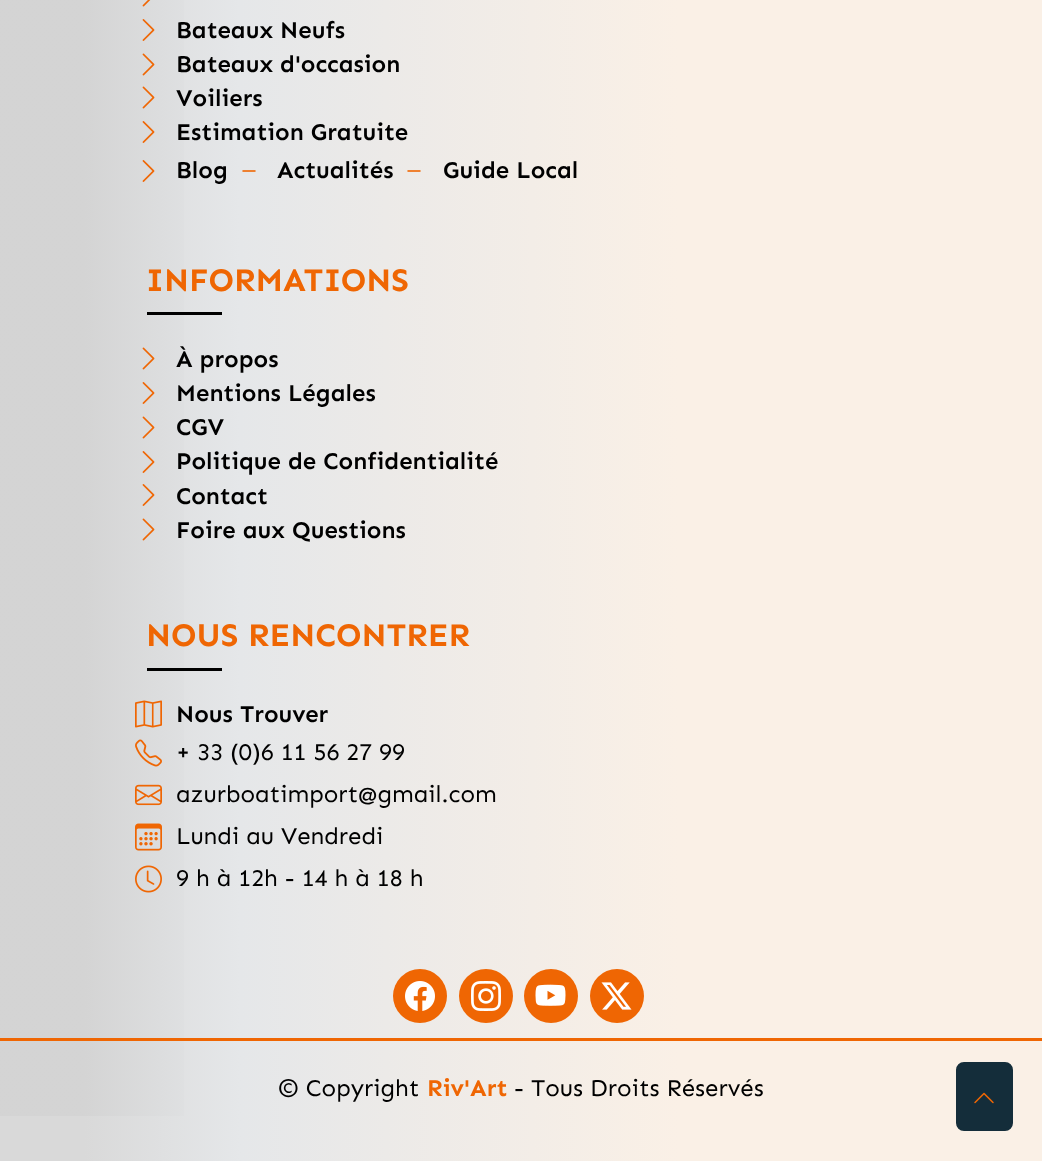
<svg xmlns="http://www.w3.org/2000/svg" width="1042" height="1161">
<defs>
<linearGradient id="g1" gradientUnits="userSpaceOnUse" x1="0" y1="296" x2="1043" y2="295"><stop offset="0.08" stop-color="#d9d9d9"/><stop offset="0.23" stop-color="#e5e7e9"/><stop offset="0.65" stop-color="#faf0e6"/></linearGradient>
<linearGradient id="g2" gradientUnits="userSpaceOnUse" x1="0" y1="273" x2="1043" y2="273"><stop offset="0.08" stop-color="#d3d3d3" stop-opacity="0.85"/><stop offset="0.23" stop-color="#e5e7e9"/><stop offset="0.65" stop-color="#faf0e6"/></linearGradient>
</defs>
<rect width="100%" height="100%" fill="#fff"/>
<rect width="1042" height="1161" fill="url(#g1)"/>
<rect width="184" height="1116" fill="url(#g2)"/>
<rect y="1038" width="1042" height="3" fill="#ef6603"/>
<image x="142" y="0" width="9" height="7" href="media/1.png"/>
<image x="142" y="19" width="13" height="22" href="media/2.png"/>
<text x="176" y="38" style="font-family:Sen;font-size:24px;font-weight:600;fill:#000">Bateaux Neufs</text>
<image x="142" y="53" width="13" height="23" href="media/3.png"/>
<text x="176" y="72" style="font-family:Sen;font-size:24px;font-weight:600;fill:#000">Bateaux d'occasion</text>
<image x="142" y="86" width="13" height="23" href="media/3.png"/>
<text x="176" y="106" style="font-family:Sen;font-size:24px;font-weight:600;fill:#000">Voiliers</text>
<image x="142" y="121" width="13" height="22" href="media/2.png"/>
<text x="176" y="140" style="font-family:Sen;font-size:24px;font-weight:600;fill:#000">Estimation Gratuite</text>
<image x="142" y="160" width="13" height="22" href="media/2.png"/>
<text x="176" y="178" style="font-family:Sen;font-size:24px;font-weight:600;fill:#000">Blog</text>
<image x="242" y="170" width="14" height="2" href="media/4.png"/>
<text x="277" y="178" style="font-family:Sen;font-size:24px;font-weight:600;fill:#000">Actualités</text>
<image x="407" y="170" width="14" height="2" href="media/5.png"/>
<text x="443" y="178" style="font-family:Sen;font-size:24px;font-weight:600;fill:#000">Guide Local</text>
<text x="146" y="291" style="font-family:Sen;font-size:33px;font-weight:bold;fill:#ef6603">INFORMATIONS</text>
<rect x="147" y="312" width="75" height="3" fill="#000"/>
<image x="142" y="347" width="13" height="23" href="media/3.png"/>
<text x="176" y="367" style="font-family:Sen;font-size:24px;font-weight:600;fill:#000">À propos</text>
<image x="142" y="382" width="13" height="22" href="media/2.png"/>
<text x="176" y="401" style="font-family:Sen;font-size:24px;font-weight:600;fill:#000">Mentions Légales</text>
<image x="142" y="416" width="13" height="23" href="media/3.png"/>
<text x="176" y="435" style="font-family:Sen;font-size:24px;font-weight:600;fill:#000">CGV</text>
<image x="142" y="451" width="13" height="22" href="media/2.png"/>
<text x="176" y="469" style="font-family:Sen;font-size:24px;font-weight:600;fill:#000">Politique de Confidentialité</text>
<image x="142" y="484" width="13" height="22" href="media/2.png"/>
<text x="176" y="504" style="font-family:Sen;font-size:24px;font-weight:600;fill:#000">Contact</text>
<image x="142" y="518" width="13" height="23" href="media/3.png"/>
<text x="176" y="538" style="font-family:Sen;font-size:24px;font-weight:600;fill:#000">Foire aux Questions</text>
<text x="146" y="646" style="font-family:Sen;font-size:33px;font-weight:bold;fill:#ef6603">NOUS RENCONTRER</text>
<rect x="147" y="668" width="75" height="3" fill="#000"/>
<image x="135" y="700" width="27" height="28" href="media/6.png"/>
<text x="176" y="722" style="font-family:Sen;font-size:24px;font-weight:600;fill:#000">Nous Trouver</text>
<image x="135" y="739" width="27" height="28" href="media/7.png"/>
<text x="176" y="760" style="font-family:Sen;font-size:24px;fill:#000">+ 33 (0)6 11 56 27 99</text>
<image x="135" y="784" width="27" height="22" href="media/8.png"/>
<text x="176" y="802" style="font-family:Sen;font-size:24px;fill:#000">azurboatimport@gmail.com</text>
<image x="135" y="823" width="27" height="28" href="media/9.png"/>
<text x="176" y="844" style="font-family:Sen;font-size:24px;fill:#000">Lundi au Vendredi</text>
<image x="135" y="865" width="27" height="28" href="media/10.png"/>
<text x="176" y="886" style="font-family:Sen;font-size:24px;fill:#000">9 h à 12h - 14 h à 18 h</text>
<circle cx="420" cy="996" r="27" fill="#ef6603"/>
<image x="405" y="981" width="30" height="30" href="media/11.png"/>
<circle cx="486" cy="996" r="27" fill="#ef6603"/>
<image x="471" y="981" width="30" height="30" href="media/12.png"/>
<circle cx="551" cy="996" r="27" fill="#ef6603"/>
<image x="535" y="984" width="31" height="22" href="media/13.png"/>
<circle cx="617" cy="996" r="27" fill="#ef6603"/>
<image x="601" y="982" width="31" height="28" href="media/14.png"/>
<text x="278" y="1096" style="font-family:Sen;font-size:24px;fill:#000">© Copyright</text>
<text x="427" y="1096" style="font-family:Sen;font-size:24px;font-weight:bold;fill:#ef6603">Riv'Art</text>
<text x="514" y="1096" style="font-family:Sen;font-size:24px;fill:#000">- Tous Droits Réservés</text>
<rect x="957" y="1063" width="55" height="67" rx="7" fill="#142d3a" stroke="#142d3a" stroke-width="2"/>
<image x="974" y="1092" width="20" height="12" href="media/15.png"/>
</svg>
